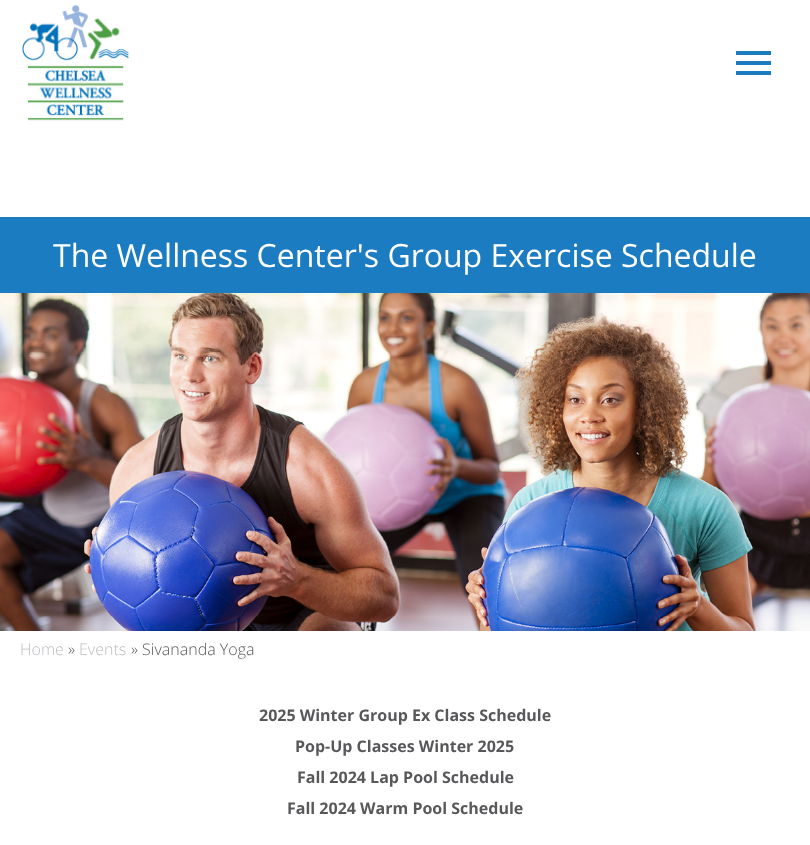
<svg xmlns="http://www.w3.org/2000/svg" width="810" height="845">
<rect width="100%" height="100%" fill="#fff"/>
<image x="22" y="5" width="107" height="116" href="media/1.png"/>
<rect x="736" y="51" width="35" height="4" fill="#1c7cc1"/>
<rect x="736" y="61" width="35" height="4" fill="#1c7cc1"/>
<rect x="736" y="71" width="35" height="4" fill="#1c7cc1"/>
<rect y="217" width="810" height="76" fill="#1c7cc1"/>
<text x="53" y="267" style="font-family:Open Sans;font-size:32px;fill:#fff">The Wellness Center's Group Exercise Schedule</text>
<image x="0" y="293" width="810" height="338" href="media/2.png"/>
<text x="20" y="655" style="font-family:Open Sans;font-size:16px;font-weight:300;fill:#bbbdc0">Home</text>
<text x="68" y="655" style="font-family:Open Sans;font-size:16px;font-weight:300;fill:#58585b">»</text>
<text x="79" y="655" style="font-family:Open Sans;font-size:16px;font-weight:300;fill:#bbbdc0">Events</text>
<text x="131" y="655" style="font-family:Open Sans;font-size:16px;font-weight:300;fill:#58585b">» Sivananda Yoga</text>
<text x="259" y="721" style="font-family:Open Sans;font-size:16px;font-weight:bold;fill:#58585b">2025 Winter Group Ex Class Schedule</text>
<text x="295" y="752" style="font-family:Open Sans;font-size:16px;font-weight:bold;fill:#58585b">Pop-Up Classes Winter 2025</text>
<text x="297" y="783" style="font-family:Open Sans;font-size:16px;font-weight:bold;fill:#58585b">Fall 2024 Lap Pool Schedule</text>
<text x="287" y="814" style="font-family:Open Sans;font-size:16px;font-weight:bold;fill:#58585b">Fall 2024 Warm Pool Schedule</text>
</svg>
